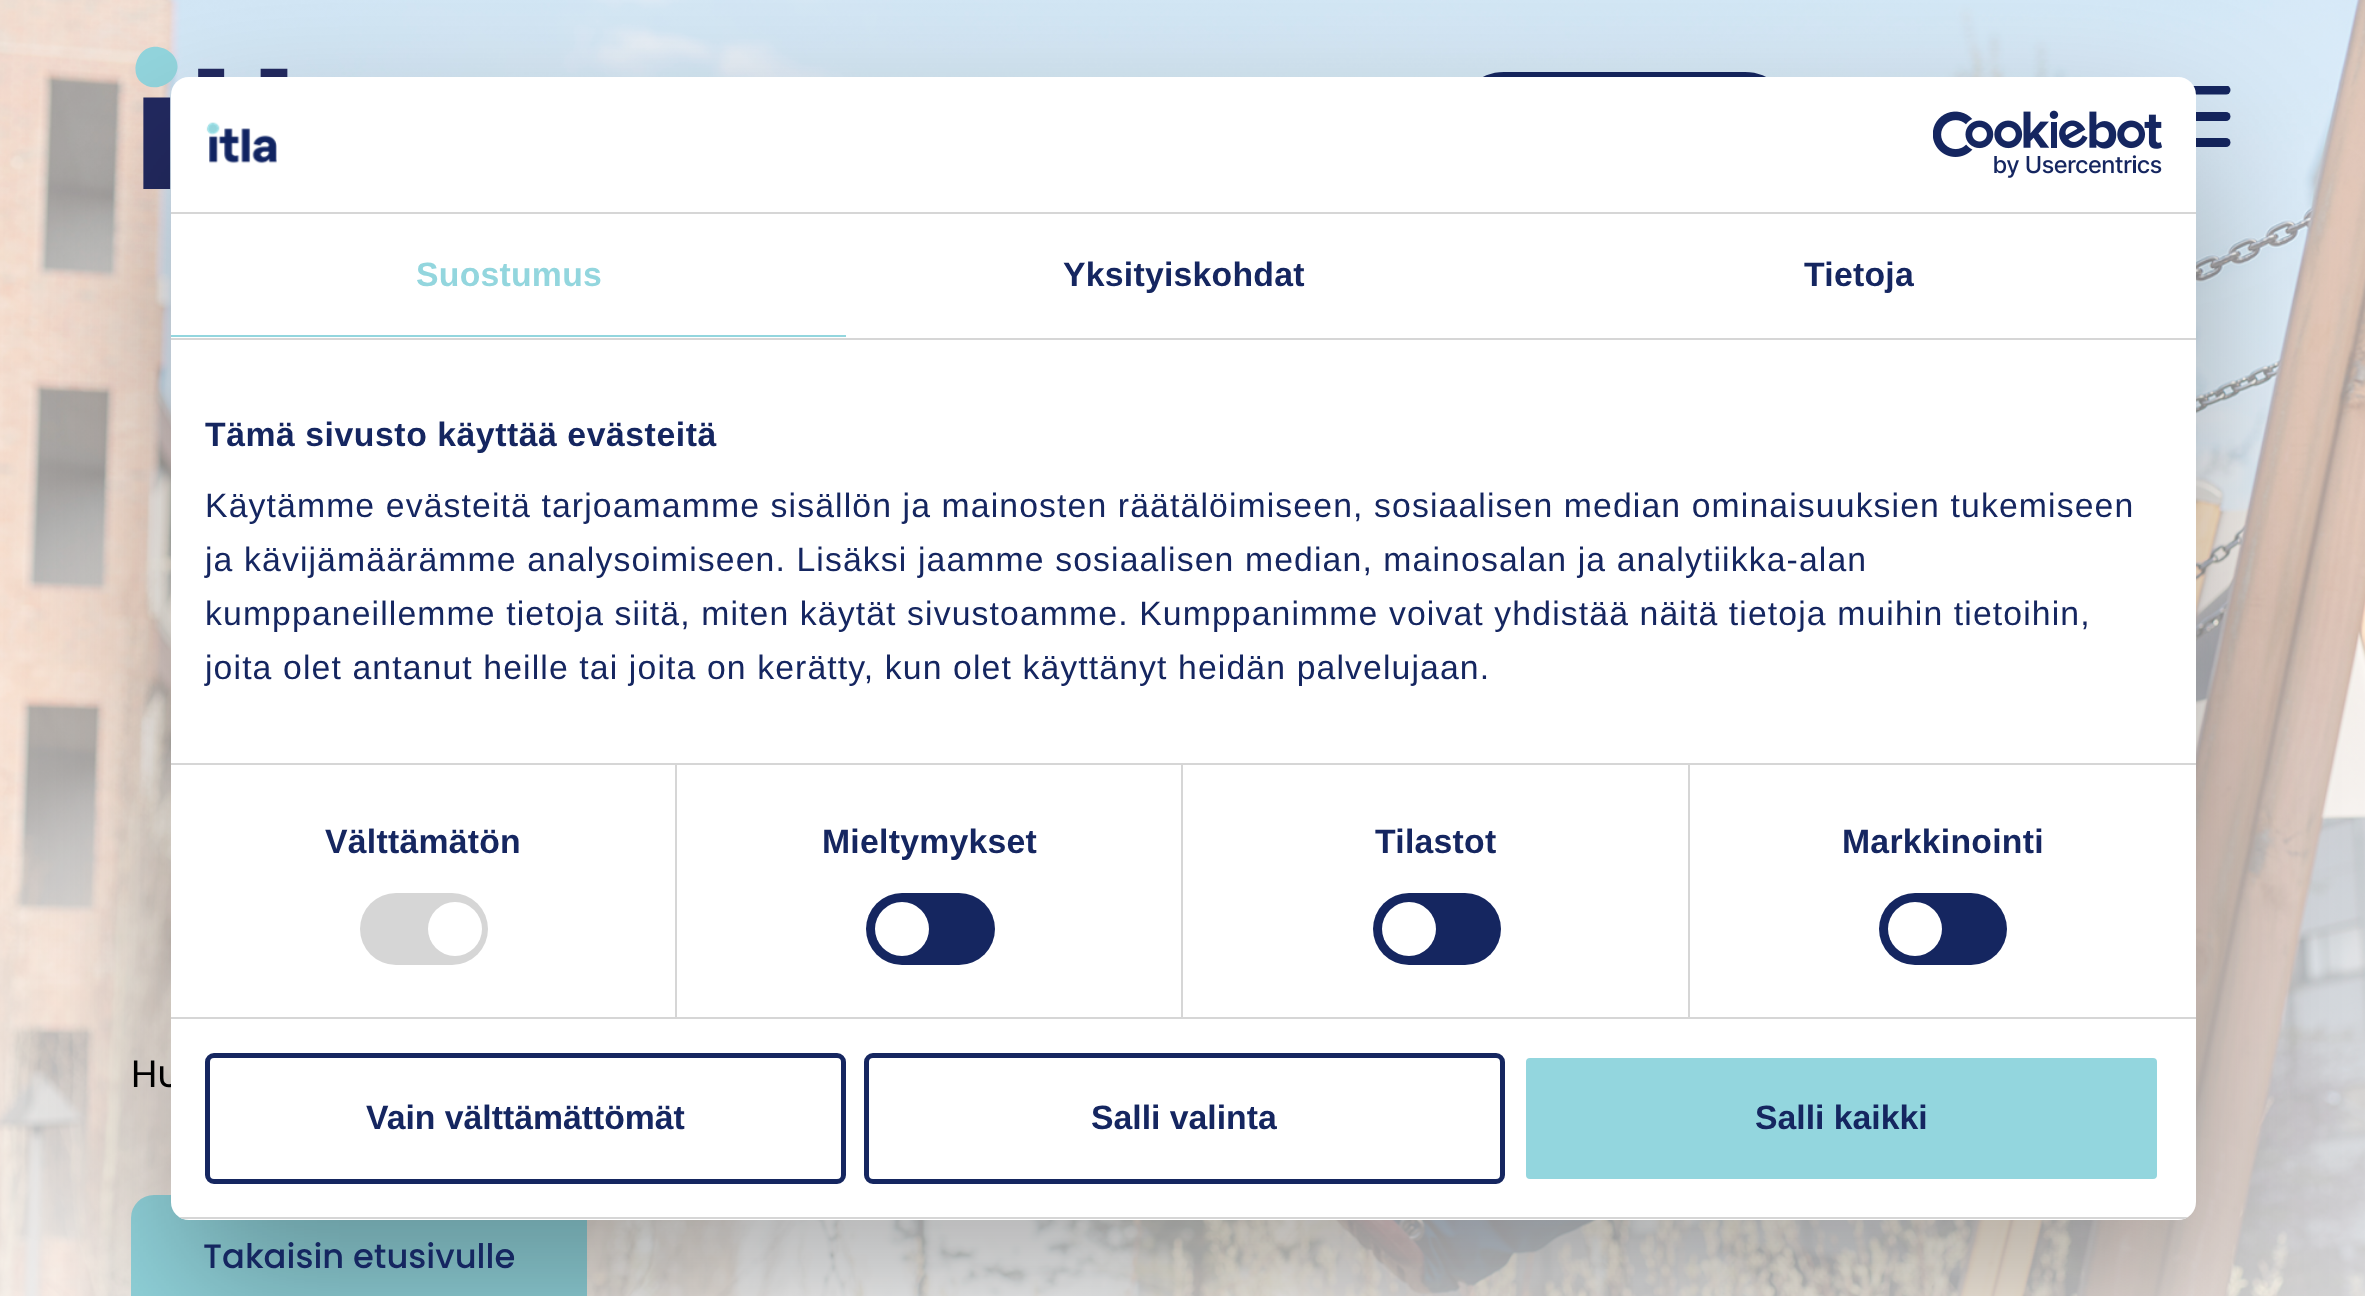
<svg xmlns="http://www.w3.org/2000/svg" width="2365" height="1296">
<defs>
<clipPath id="clip1"><rect x="2158" y="86" width="74" height="63"/></clipPath>
<clipPath id="clip2"><rect x="171" y="77" width="2025" height="1143" rx="18"/></clipPath>
</defs>
<rect width="100%" height="100%" fill="#fff"/>
<image x="0" y="0" width="2365" height="1296" href="media/4.png"/>
<image x="135" y="46" width="153" height="143" href="media/1.png"/>
<rect x="1460.5" y="74.5" width="328" height="87" rx="43.5" fill="none" stroke="#152660" stroke-width="5"/>
<g clip-path="url(#clip1)">
<path d="M2163.5 90h62.5" fill="none" stroke="#152660" stroke-width="9" stroke-linecap="round"/>
</g>
<path d="M2163.5 116.5h62.5" fill="none" stroke="#152660" stroke-width="9" stroke-linecap="round"/>
<path d="M2163.5 142.5h62.5" fill="none" stroke="#152660" stroke-width="9" stroke-linecap="round"/>
<rect x="133.5" y="1197.5" width="451" height="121" rx="20.5" fill="#93d6de" stroke="#93d6de" stroke-width="5"/>
<rect x="171" y="149" width="2025" height="1143" rx="18" fill="#0000004d" filter="blur(76.5px)"/>
<text x="131" y="1087" style="font-family:Poppins;font-size:38px;fill:#000">Hu</text>
<rect x="171" y="77" width="2025" height="1143" rx="18" fill="#fff"/>
<rect x="171" y="212" width="2025" height="2" fill="#d6d6d6"/>
<image x="206" y="122" width="71" height="42" href="media/2.png"/>
<image x="1933" y="110" width="229" height="68" href="media/3.png"/>
<rect x="171" y="338" width="2025" height="2" fill="#d6d6d6"/>
<rect x="171" y="335" width="675" height="2" fill="#93d6de"/>
<text x="416" y="286" style="font-family:Liberation Sans;font-size:33.75px;font-weight:bold;letter-spacing:0.25px;fill:#93d6de">Suostumus</text>
<text x="1063" y="286" style="font-family:Liberation Sans;font-size:33.75px;font-weight:bold;letter-spacing:0.25px;fill:#152660">Yksityiskohdat</text>
<text x="1804" y="286" style="font-family:Liberation Sans;font-size:33.75px;font-weight:bold;letter-spacing:0.25px;fill:#152660">Tietoja</text>
<rect x="171" y="763" width="2025" height="2" fill="#d6d6d6"/>
<text x="205" y="446" style="font-family:Liberation Sans;font-size:33.75px;font-weight:bold;letter-spacing:0.55px;fill:#152660">Tämä sivusto käyttää evästeitä</text>
<text x="205" y="517" style="font-family:Liberation Sans;font-size:33.75px;letter-spacing:1.12px;fill:#152660">Käytämme evästeitä tarjoamamme sisällön ja mainosten räätälöimiseen, sosiaalisen median ominaisuuksien tukemiseen</text>
<text x="205" y="571" style="font-family:Liberation Sans;font-size:33.75px;letter-spacing:1.12px;fill:#152660">ja kävijämäärämme analysoimiseen. Lisäksi jaamme sosiaalisen median, mainosalan ja analytiikka-alan</text>
<text x="205" y="625" style="font-family:Liberation Sans;font-size:33.75px;letter-spacing:1.12px;fill:#152660">kumppaneillemme tietoja siitä, miten käytät sivustoamme. Kumppanimme voivat yhdistää näitä tietoja muihin tietoihin,</text>
<text x="205" y="679" style="font-family:Liberation Sans;font-size:33.75px;letter-spacing:1.12px;fill:#152660">joita olet antanut heille tai joita on kerätty, kun olet käyttänyt heidän palvelujaan.</text>
<rect x="171" y="1017" width="2025" height="2" fill="#d6d6d6"/>
<rect x="675" y="765" width="2" height="252" fill="#d6d6d6"/>
<text x="325" y="853" style="font-family:Liberation Sans;font-size:33.75px;font-weight:bold;letter-spacing:0.25px;fill:#152660">Välttämätön</text>
<rect x="360" y="893" width="128" height="72" rx="36" fill="#d6d6d6"/>
<circle cx="455" cy="929" r="27" fill="#fff"/>
<rect x="1181" y="765" width="2" height="252" fill="#d6d6d6"/>
<text x="822" y="853" style="font-family:Liberation Sans;font-size:33.75px;font-weight:bold;letter-spacing:0.25px;fill:#152660">Mieltymykset</text>
<rect x="866" y="893" width="129" height="72" rx="36" fill="#152660"/>
<circle cx="902" cy="929" r="27" fill="#fff"/>
<rect x="1688" y="765" width="2" height="252" fill="#d6d6d6"/>
<text x="1375" y="853" style="font-family:Liberation Sans;font-size:33.75px;font-weight:bold;letter-spacing:0.25px;fill:#152660">Tilastot</text>
<rect x="1373" y="893" width="128" height="72" rx="36" fill="#152660"/>
<circle cx="1409" cy="929" r="27" fill="#fff"/>
<text x="1842" y="853" style="font-family:Liberation Sans;font-size:33.75px;font-weight:bold;letter-spacing:0.25px;fill:#152660">Markkinointi</text>
<rect x="1879" y="893" width="128" height="72" rx="36" fill="#152660"/>
<circle cx="1915" cy="929" r="27" fill="#fff"/>
<g clip-path="url(#clip2)">
<rect x="171" y="1217" width="2025" height="2" fill="#d6d6d6"/>
</g>
<rect x="207.5" y="1055.5" width="636" height="126" rx="6.5" fill="none" stroke="#152660" stroke-width="5"/>
<text x="366" y="1129" style="font-family:Liberation Sans;font-size:33.75px;font-weight:bold;fill:#152660">Vain välttämättömät</text>
<rect x="866.5" y="1055.5" width="636" height="126" rx="6.5" fill="none" stroke="#152660" stroke-width="5"/>
<text x="1091" y="1129" style="font-family:Liberation Sans;font-size:33.75px;font-weight:bold;fill:#152660">Salli valinta</text>
<rect x="1523.5" y="1055.5" width="636" height="126" rx="6.5" fill="#93d6de" stroke="#fff" stroke-width="5"/>
<text x="1755" y="1129" style="font-family:Liberation Sans;font-size:33.75px;font-weight:bold;fill:#152660">Salli kaikki</text>
<text x="203" y="1268" style="font-family:Poppins;font-size:33.75px;font-weight:500;fill:#152660">Takaisin etusivulle</text>
</svg>
